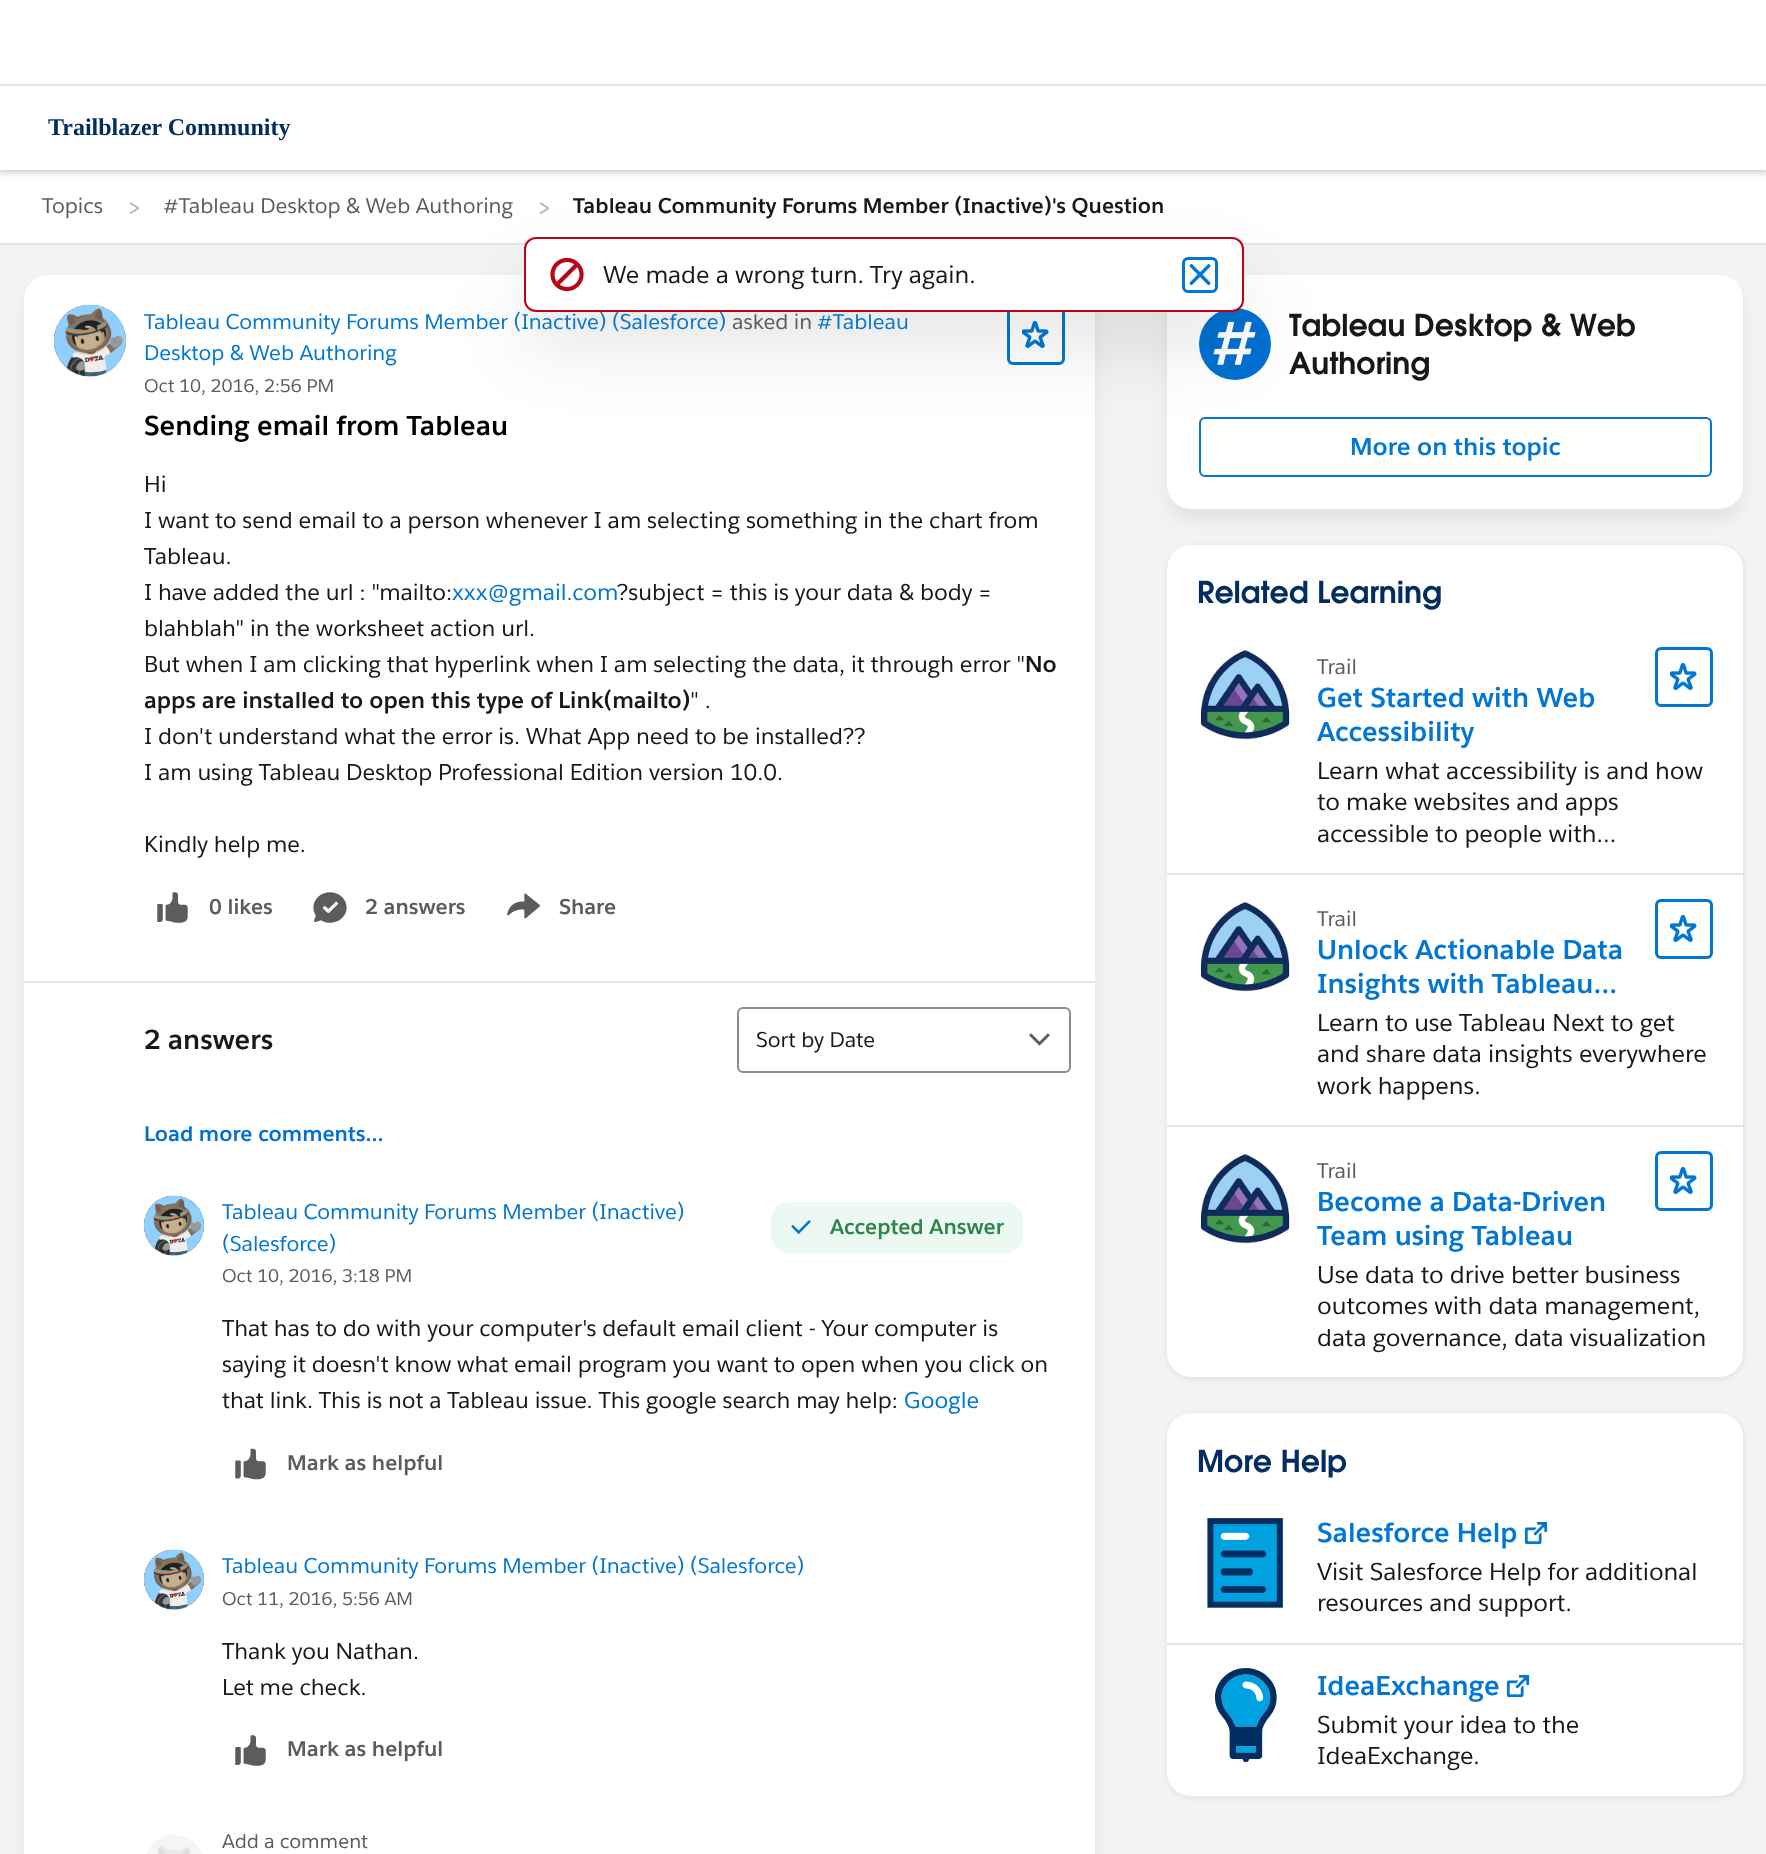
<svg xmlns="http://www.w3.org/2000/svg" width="1766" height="1854">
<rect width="100%" height="100%" fill="#f3f3f3"/>
<rect y="170" width="1766" height="73" fill="#fff"/>
<rect x="-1" y="86" width="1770" height="88" fill="#18181829" filter="blur(3px)"/>
<rect y="84" width="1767" height="86" fill="#18181814" filter="blur(1.5px)"/>
<rect width="1766" height="84" fill="#fff"/>
<rect y="243" width="1766" height="2" fill="#e5e5e5"/>
<rect x="27" y="290" width="1065" height="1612" rx="21" fill="#18181817" filter="blur(9px)"/>
<rect x="24" y="275" width="1071" height="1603" rx="24" fill="#fff"/>
<rect x="1008.5" y="306.5" width="55" height="57" rx="4.5" fill="none" stroke="#0176d3" stroke-width="3"/>
<image x="1022" y="321" width="27" height="27" href="media/2.png"/>
<rect x="1166" y="545" width="579" height="835" rx="26" fill="#1818180f" filter="blur(2px)"/>
<rect x="1167" y="545" width="576" height="832" rx="24" fill="#fff"/>
<rect x="1170" y="290" width="570" height="228" rx="21" fill="#18181817" filter="blur(9px)"/>
<rect x="1167" y="275" width="576" height="234" rx="24" fill="#fff"/>
<circle cx="1235" cy="344" r="36" fill="#0070d2"/>
<image x="1213" y="321" width="43" height="44" href="media/12.png"/>
<rect x="1200" y="418" width="511" height="58" rx="5" fill="none" stroke="#0176d3" stroke-width="2"/>
<rect x="527" y="276" width="714" height="69" rx="9" fill="#1818181f" filter="blur(36px)"/>
<rect y="86" width="1766" height="84" fill="#fff"/>
<rect y="84" width="1766" height="2" fill="#e5e5e5"/>
<text x="48" y="135" style="font-family:Liberation Serif;font-size:24px;font-weight:bold;fill:#032d60">Trailblazer Community</text>
<text x="42" y="213" style="font-family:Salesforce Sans;font-size:21px;fill:#5c5c5c">Topics</text>
<text x="127" y="215" style="font-family:Salesforce Sans;font-size:24px;fill:#aeaeae">&gt;</text>
<text x="163" y="213" style="font-family:Salesforce Sans;font-size:21px;fill:#5c5c5c">#Tableau Desktop &amp; Web Authoring</text>
<text x="537" y="215" style="font-family:Salesforce Sans;font-size:24px;fill:#aeaeae">&gt;</text>
<text x="573" y="213" style="font-family:Salesforce Sans;font-size:21px;font-weight:bold;fill:#181818">Tableau Community Forums Member (Inactive)'s Question</text>
<circle cx="90" cy="341" r="36" fill="#e5e5e5"/>
<image x="54" y="304" width="72" height="73" href="media/1.png"/>
<text x="144" y="329" style="font-family:Salesforce Sans;font-size:21px;fill:#0176d3">Tableau Community Forums Member (Inactive) (Salesforce)</text>
<text x="732" y="329" style="font-family:Salesforce Sans;font-size:21px;fill:#5c5c5c">asked in</text>
<text x="817" y="329" style="font-family:Salesforce Sans;font-size:21px;fill:#0176d3">#Tableau</text>
<text x="144" y="360" style="font-family:Salesforce Sans;font-size:21px;fill:#0176d3">Desktop &amp; Web Authoring</text>
<text x="144" y="392" style="font-family:Salesforce Sans;font-size:18px;fill:#5c5c5c">Oct 10, 2016, 2:56 PM</text>
<text x="144" y="435" style="font-family:Salesforce Sans;font-size:27px;font-weight:bold;fill:#000">Sending email from Tableau</text>
<text x="144" y="492" style="font-family:Salesforce Sans;font-size:22.5px;fill:#181818">Hi</text>
<text x="144" y="528" style="font-family:Salesforce Sans;font-size:22.5px;fill:#181818">I want to send email to a person whenever I am selecting something in the chart from</text>
<text x="144" y="564" style="font-family:Salesforce Sans;font-size:22.5px;fill:#181818">Tableau.</text>
<text x="144" y="600" style="font-family:Salesforce Sans;font-size:22.5px;fill:#181818">I have added the url : "mailto:</text>
<text x="452" y="600" style="font-family:Salesforce Sans;font-size:22.5px;fill:#0176d3">xxx@gmail.com</text>
<text x="617" y="600" style="font-family:Salesforce Sans;font-size:22.5px;fill:#181818">?subject = this is your data &amp; body =</text>
<text x="144" y="636" style="font-family:Salesforce Sans;font-size:22.5px;fill:#181818">blahblah" in the worksheet action url.</text>
<text x="144" y="672" style="font-family:Salesforce Sans;font-size:22.5px;fill:#181818">But when I am clicking that hyperlink when I am selecting the data, it through error "</text>
<text x="1025" y="672" style="font-family:Salesforce Sans;font-size:22.5px;font-weight:bold;fill:#181818">No</text>
<text x="144" y="708" style="font-family:Salesforce Sans;font-size:22.5px;font-weight:bold;fill:#181818">apps are installed to open this type of Link(mailto)</text>
<text x="690" y="708" style="font-family:Salesforce Sans;font-size:22.5px;fill:#181818">" .</text>
<text x="144" y="744" style="font-family:Salesforce Sans;font-size:22.5px;fill:#181818">I don't understand what the error is. What App need to be installed??</text>
<text x="144" y="780" style="font-family:Salesforce Sans;font-size:22.5px;fill:#181818">I am using Tableau Desktop Professional Edition version 10.0.</text>
<text x="144" y="852" style="font-family:Salesforce Sans;font-size:22.5px;fill:#181818">Kindly help me.</text>
<image x="157" y="892" width="31" height="31" href="media/3.png"/>
<text x="209" y="914" style="font-family:Salesforce Sans;font-size:21px;font-weight:bold;fill:#5c5c5c">0 likes</text>
<image x="313" y="892" width="34" height="31" href="media/4.png"/>
<text x="365" y="914" style="font-family:Salesforce Sans;font-size:21px;font-weight:bold;fill:#5c5c5c">2 answers</text>
<image x="507" y="893" width="33" height="26" href="media/5.png"/>
<text x="559" y="914" style="font-family:Salesforce Sans;font-size:21px;font-weight:bold;fill:#5c5c5c">Share</text>
<rect x="24" y="981" width="1071" height="2" fill="#e5e5e5"/>
<text x="144" y="1049" style="font-family:Salesforce Sans;font-size:27px;font-weight:bold;fill:#181818">2 answers</text>
<rect x="738" y="1008" width="332" height="64" rx="5" fill="none" stroke="#8c8c8c" stroke-width="2"/>
<text x="756" y="1047" style="font-family:Salesforce Sans;font-size:21px;fill:#181818">Sort by Date</text>
<image x="1029" y="1033" width="21" height="13" href="media/6.png"/>
<text x="144" y="1141" style="font-family:Salesforce Sans;font-size:21px;font-weight:bold;fill:#0070d2">Load more comments...</text>
<circle cx="174" cy="1226" r="30" fill="#e5e5e5"/>
<image x="144" y="1195" width="60" height="61" href="media/7.png"/>
<text x="222" y="1219" style="font-family:Salesforce Sans;font-size:21px;fill:#0176d3">Tableau Community Forums Member (Inactive)</text>
<text x="222" y="1251" style="font-family:Salesforce Sans;font-size:21px;fill:#0176d3">(Salesforce)</text>
<rect x="771" y="1202" width="252" height="51" rx="18" fill="#ecf9f3"/>
<image x="791" y="1220" width="20" height="14" href="media/8.png"/>
<text x="830" y="1234" style="font-family:Salesforce Sans;font-size:21px;font-weight:bold;fill:#2e844a">Accepted Answer</text>
<text x="222" y="1282" style="font-family:Salesforce Sans;font-size:18px;fill:#5c5c5c">Oct 10, 2016, 3:18 PM</text>
<text x="222" y="1336" style="font-family:Salesforce Sans;font-size:22.5px;fill:#181818">That has to do with your computer's default email client - Your computer is</text>
<text x="222" y="1372" style="font-family:Salesforce Sans;font-size:22.5px;fill:#181818">saying it doesn't know what email program you want to open when you click on</text>
<text x="222" y="1408" style="font-family:Salesforce Sans;font-size:22.5px;fill:#181818">that link. This is not a Tableau issue. This google search may help:</text>
<text x="904" y="1408" style="font-family:Salesforce Sans;font-size:22.5px;fill:#0176d3">Google</text>
<image x="235" y="1448" width="31" height="32" href="media/9.png"/>
<text x="287" y="1470" style="font-family:Salesforce Sans;font-size:21px;font-weight:bold;fill:#5c5c5c">Mark as helpful</text>
<circle cx="174" cy="1580" r="30" fill="#e5e5e5"/>
<image x="144" y="1549" width="60" height="61" href="media/7.png"/>
<text x="222" y="1573" style="font-family:Salesforce Sans;font-size:21px;fill:#0176d3">Tableau Community Forums Member (Inactive) (Salesforce)</text>
<text x="222" y="1605" style="font-family:Salesforce Sans;font-size:18px;fill:#5c5c5c">Oct 11, 2016, 5:56 AM</text>
<text x="222" y="1659" style="font-family:Salesforce Sans;font-size:22.5px;fill:#181818">Thank you Nathan.</text>
<text x="222" y="1695" style="font-family:Salesforce Sans;font-size:22.5px;fill:#181818">Let me check.</text>
<image x="235" y="1735" width="31" height="31" href="media/10.png"/>
<text x="287" y="1756" style="font-family:Salesforce Sans;font-size:21px;font-weight:bold;fill:#5c5c5c">Mark as helpful</text>
<image x="146" y="1835" width="56" height="19" href="media/11.png"/>
<text x="222" y="1848" style="font-family:Salesforce Sans;font-size:19.5px;fill:#5c5c5c">Add a comment</text>
<text x="1289" y="336" style="font-family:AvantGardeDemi;font-size:30px;font-weight:600;fill:#181818">Tableau Desktop &amp; Web</text>
<text x="1289" y="374" style="font-family:AvantGardeDemi;font-size:30px;font-weight:600;fill:#181818">Authoring</text>
<text x="1350" y="455" style="font-family:Salesforce Sans;font-size:24px;font-weight:bold;fill:#0176d3">More on this topic</text>
<text x="1197" y="603" style="font-family:AvantGardeDemi;font-size:30px;font-weight:600;fill:#032d60">Related Learning</text>
<image x="1200" y="650" width="90" height="90" href="media/13.png"/>
<text x="1317" y="674" style="font-family:Salesforce Sans;font-size:21px;fill:#5c5c5c">Trail</text>
<rect x="1656.5" y="648.5" width="55" height="57" rx="4.5" fill="none" stroke="#0176d3" stroke-width="3"/>
<image x="1670" y="663" width="27" height="27" href="media/2.png"/>
<text x="1317" y="707" style="font-family:Salesforce Sans;font-size:27px;font-weight:bold;fill:#0176d3">Get Started with Web</text>
<text x="1317" y="741" style="font-family:Salesforce Sans;font-size:27px;font-weight:bold;fill:#0176d3">Accessibility</text>
<text x="1317" y="779" style="font-family:Salesforce Sans;font-size:24px;fill:#181818">Learn what accessibility is and how</text>
<text x="1317" y="810" style="font-family:Salesforce Sans;font-size:24px;fill:#181818">to make websites and apps</text>
<text x="1317" y="842" style="font-family:Salesforce Sans;font-size:24px;fill:#181818">accessible to people with…</text>
<rect x="1167" y="873" width="576" height="2" fill="#e5e5e5"/>
<image x="1200" y="902" width="90" height="90" href="media/14.png"/>
<text x="1317" y="926" style="font-family:Salesforce Sans;font-size:21px;fill:#5c5c5c">Trail</text>
<rect x="1656.5" y="900.5" width="55" height="57" rx="4.5" fill="none" stroke="#0176d3" stroke-width="3"/>
<image x="1670" y="915" width="27" height="27" href="media/2.png"/>
<text x="1317" y="959" style="font-family:Salesforce Sans;font-size:27px;font-weight:bold;fill:#0176d3">Unlock Actionable Data</text>
<text x="1317" y="993" style="font-family:Salesforce Sans;font-size:27px;font-weight:bold;fill:#0176d3">Insights with Tableau…</text>
<text x="1317" y="1031" style="font-family:Salesforce Sans;font-size:24px;fill:#181818">Learn to use Tableau Next to get</text>
<text x="1317" y="1062" style="font-family:Salesforce Sans;font-size:24px;fill:#181818">and share data insights everywhere</text>
<text x="1317" y="1094" style="font-family:Salesforce Sans;font-size:24px;fill:#181818">work happens.</text>
<rect x="1167" y="1125" width="576" height="2" fill="#e5e5e5"/>
<image x="1200" y="1154" width="90" height="90" href="media/15.png"/>
<text x="1317" y="1178" style="font-family:Salesforce Sans;font-size:21px;fill:#5c5c5c">Trail</text>
<rect x="1656.5" y="1152.5" width="55" height="57" rx="4.5" fill="none" stroke="#0176d3" stroke-width="3"/>
<image x="1670" y="1167" width="27" height="27" href="media/2.png"/>
<text x="1317" y="1211" style="font-family:Salesforce Sans;font-size:27px;font-weight:bold;fill:#0176d3">Become a Data-Driven</text>
<text x="1317" y="1245" style="font-family:Salesforce Sans;font-size:27px;font-weight:bold;fill:#0176d3">Team using Tableau</text>
<text x="1317" y="1283" style="font-family:Salesforce Sans;font-size:24px;fill:#181818">Use data to drive better business</text>
<text x="1317" y="1314" style="font-family:Salesforce Sans;font-size:24px;fill:#181818">outcomes with data management,</text>
<text x="1317" y="1346" style="font-family:Salesforce Sans;font-size:24px;fill:#181818">data governance, data visualization</text>
<rect x="1166" y="1413" width="579" height="386" rx="26" fill="#1818180f" filter="blur(2px)"/>
<rect x="1167" y="1413" width="576" height="383" rx="24" fill="#fff"/>
<text x="1197" y="1472" style="font-family:AvantGardeDemi;font-size:30px;font-weight:600;fill:#032d60">More Help</text>
<image x="1207" y="1518" width="76" height="90" href="media/16.png"/>
<text x="1317" y="1542" style="font-family:Salesforce Sans;font-size:27px;font-weight:bold;fill:#0176d3">Salesforce Help</text>
<image x="1524" y="1521" width="24" height="24" href="media/17.png"/>
<text x="1317" y="1580" style="font-family:Salesforce Sans;font-size:24px;fill:#181818">Visit Salesforce Help for additional</text>
<text x="1317" y="1611" style="font-family:Salesforce Sans;font-size:24px;fill:#181818">resources and support.</text>
<rect x="1167" y="1643" width="576" height="2" fill="#e5e5e5"/>
<image x="1215" y="1668" width="62" height="95" href="media/18.png"/>
<text x="1317" y="1695" style="font-family:Salesforce Sans;font-size:27px;font-weight:bold;fill:#0176d3">IdeaExchange</text>
<image x="1506" y="1674" width="24" height="24" href="media/17.png"/>
<text x="1317" y="1733" style="font-family:Salesforce Sans;font-size:24px;fill:#181818">Submit your idea to the</text>
<text x="1317" y="1764" style="font-family:Salesforce Sans;font-size:24px;fill:#181818">IdeaExchange.</text>
<rect x="525" y="238" width="718" height="73" rx="11" fill="#fff" stroke="#ba0517" stroke-width="2"/>
<image x="550" y="257" width="34" height="35" href="media/19.png"/>
<text x="603" y="283" style="font-family:Salesforce Sans;font-size:24px;fill:#181818">We made a wrong turn. Try again.</text>
<rect x="1183.5" y="258.5" width="33" height="33" rx="4.5" fill="none" stroke="#0176d3" stroke-width="3"/>
<image x="1189" y="263" width="22" height="23" href="media/20.png"/>
</svg>
